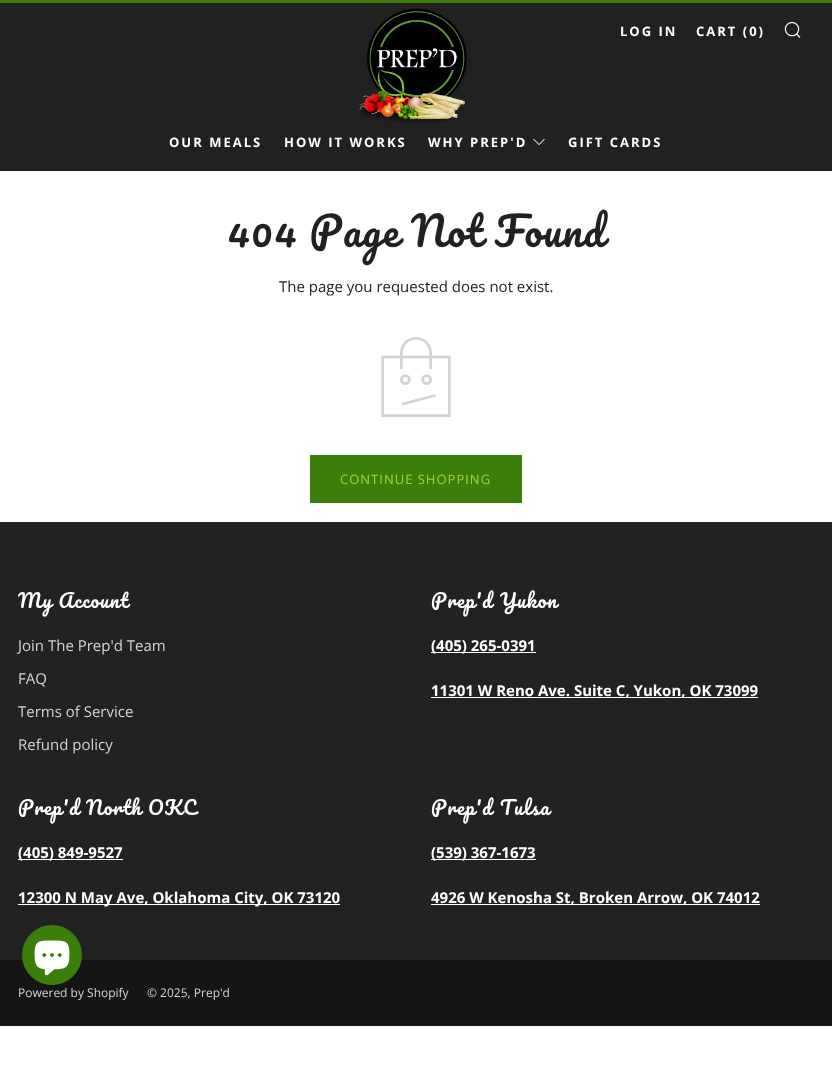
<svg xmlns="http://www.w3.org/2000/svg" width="832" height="1070">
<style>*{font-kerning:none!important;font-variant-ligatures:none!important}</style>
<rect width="100%" height="100%" fill="#fff"/>
<rect width="832" height="3" fill="#3b7f0a"/>
<rect y="3" width="832" height="168" fill="#212121"/>
<image x="359" y="8" width="108" height="115" href="media/1.png"/>
<text x="620" y="36" style="font-family:Open Sans;font-size:13px;font-weight:bold;letter-spacing:2px;fill:#fff">LOG IN</text>
<text x="696" y="36" style="font-family:Open Sans;font-size:13px;font-weight:bold;letter-spacing:2px;fill:#fff">CART (0)</text>
<image x="784" y="21" width="17" height="17" href="media/2.png"/>
<text x="169" y="147" style="font-family:Open Sans;font-size:13px;font-weight:bold;letter-spacing:2px;fill:#fff">OUR MEALS</text>
<text x="284" y="147" style="font-family:Open Sans;font-size:13px;font-weight:bold;letter-spacing:2px;fill:#fff">HOW IT WORKS</text>
<text x="428" y="147" style="font-family:Open Sans;font-size:13px;font-weight:bold;letter-spacing:2px;fill:#fff">WHY PREP'D</text>
<image x="533" y="138" width="12" height="7" href="media/3.png"/>
<text x="568" y="147" style="font-family:Open Sans;font-size:13px;font-weight:bold;letter-spacing:2px;fill:#fff">GIFT CARDS</text>
<text x="227" y="247" style="font-family:Pacifico;font-size:40px;letter-spacing:1px;fill:#212121">404 Page Not Found</text>
<text x="279" y="292" style="font-family:Open Sans;font-size:15px;fill:#212121">The page you requested does not exist.</text>
<image x="381" y="337" width="70" height="80" href="media/4.png"/>
<rect x="310" y="455" width="212" height="48" fill="#3b7f0a"/>
<text x="340" y="484" style="font-family:Open Sans;font-size:13px;letter-spacing:1px;fill:#a5d33b">CONTINUE SHOPPING</text>
<rect y="522" width="832" height="438" fill="#222"/>
<text x="18" y="608" style="font-family:Pacifico;font-size:19px;letter-spacing:1px;fill:#fff">My Account</text>
<text x="18" y="651" style="font-family:Open Sans;font-size:15px;fill:#d3d3d3">Join The Prep'd Team</text>
<text x="18" y="684" style="font-family:Open Sans;font-size:15px;fill:#d3d3d3">FAQ</text>
<text x="18" y="717" style="font-family:Open Sans;font-size:15px;fill:#d3d3d3">Terms of Service</text>
<text x="18" y="750" style="font-family:Open Sans;font-size:15px;fill:#d3d3d3">Refund policy</text>
<text x="431" y="608" word-spacing="1" style="font-family:Pacifico;font-size:19px;letter-spacing:1px;fill:#fff">Prep'd Yukon</text>
<rect x="431" y="652" width="105" height="1" fill="#fff"/>
<text x="431" y="651" style="font-family:Open Sans;font-size:15px;font-weight:bold;fill:#fff">(405) 265-0391</text>
<rect x="431" y="697" width="327" height="1" fill="#fff"/>
<text x="431" y="696" style="font-family:Open Sans;font-size:15px;font-weight:bold;fill:#fff">11301 W Reno Ave. Suite C, Yukon, OK 73099</text>
<text x="18" y="815" style="font-family:Pacifico;font-size:19px;letter-spacing:1px;fill:#fff">Prep'd North OKC</text>
<rect x="18" y="859" width="105" height="1" fill="#fff"/>
<text x="18" y="858" style="font-family:Open Sans;font-size:15px;font-weight:bold;fill:#fff">(405) 849-9527</text>
<rect x="18" y="904" width="322" height="1" fill="#fff"/>
<text x="18" y="903" style="font-family:Open Sans;font-size:15px;font-weight:bold;fill:#fff">12300 N May Ave, Oklahoma City, OK 73120</text>
<text x="431" y="815" word-spacing="1" style="font-family:Pacifico;font-size:19px;letter-spacing:1px;fill:#fff">Prep'd Tulsa</text>
<rect x="431" y="859" width="105" height="1" fill="#fff"/>
<text x="431" y="858" style="font-family:Open Sans;font-size:15px;font-weight:bold;fill:#fff">(539) 367-1673</text>
<rect x="431" y="904" width="329" height="1" fill="#fff"/>
<text x="431" y="903" style="font-family:Open Sans;font-size:15px;font-weight:bold;fill:#fff">4926 W Kenosha St, Broken Arrow, OK 74012</text>
<rect y="960" width="832" height="66" fill="#151515"/>
<text x="18" y="997" style="font-family:Open Sans;font-size:12px;fill:#d3d3d3">Powered by Shopify</text>
<text x="147" y="997" style="font-family:Open Sans;font-size:12px;fill:#d3d3d3">© 2025, Prep'd</text>
<circle cx="52" cy="955" r="30" fill="#3b7f0a"/>
<image x="34" y="940" width="36" height="36" href="media/5.png"/>
</svg>
